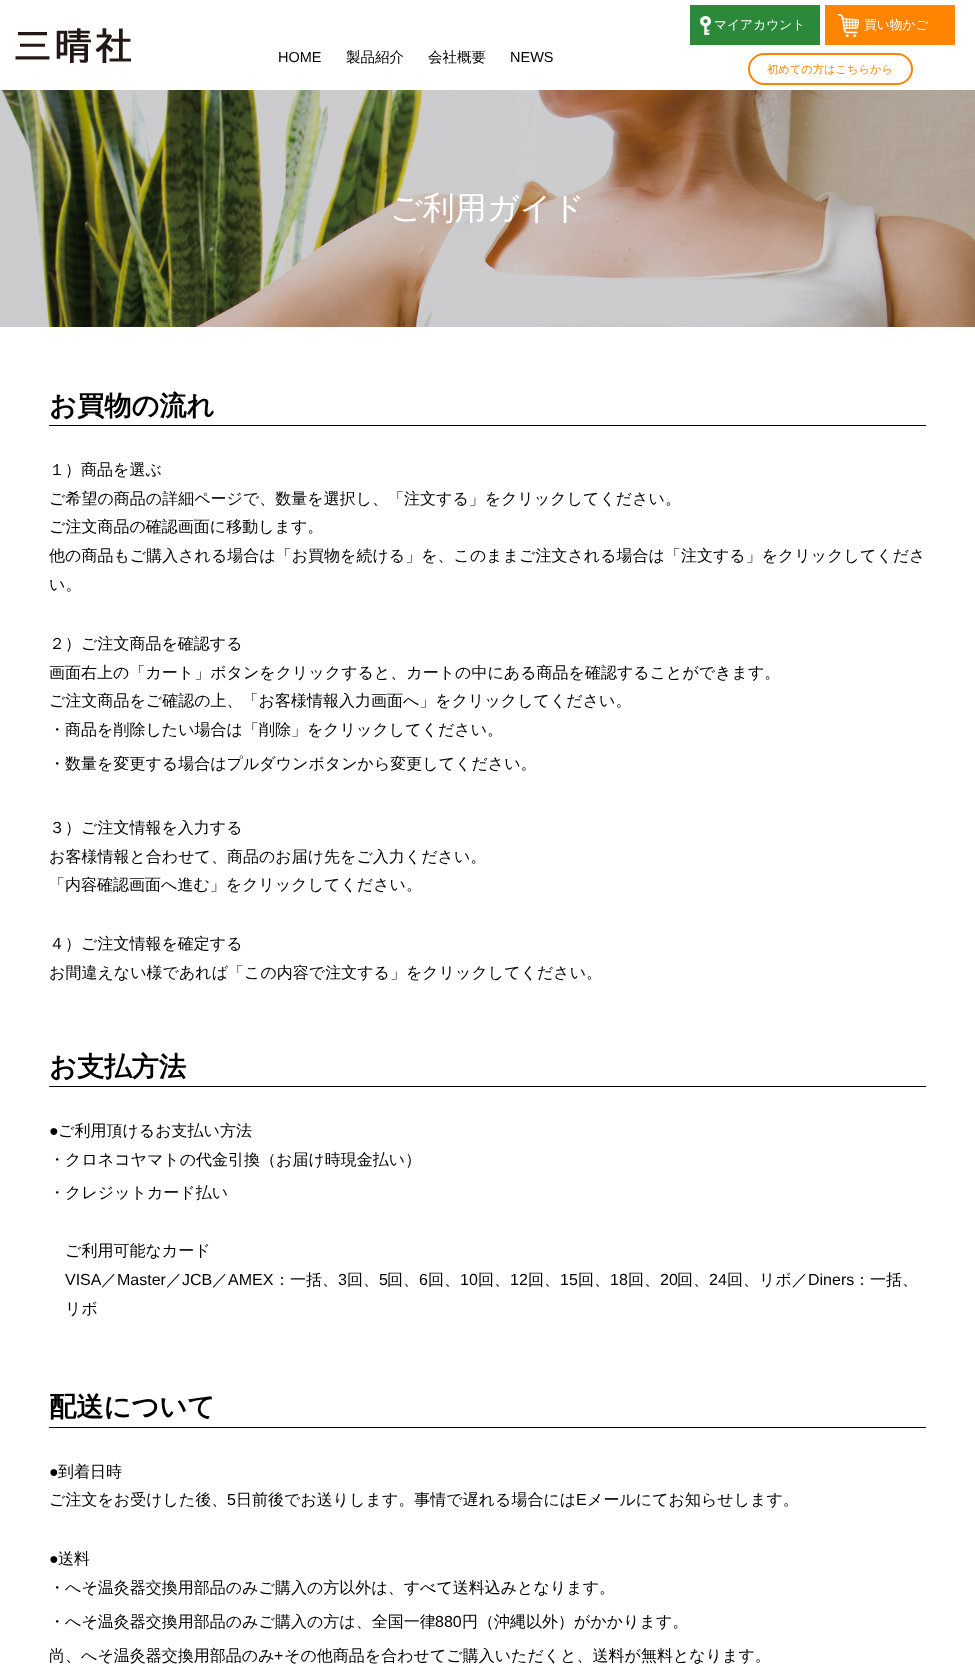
<svg xmlns="http://www.w3.org/2000/svg" width="975" height="1674">
<rect width="100%" height="100%" fill="#fff"/>
<image x="15" y="28" width="116" height="35" href="media/1.png"/>
<text x="278" y="62" style="font-family:Liberation Sans;font-size:14.5px;fill:#000">HOME</text>
<text x="346" y="62" style="font-family:WenQuanYi Zen Hei;font-size:14.5px;font-weight:500;fill:#000">製品紹介</text>
<text x="428" y="62" style="font-family:WenQuanYi Zen Hei;font-size:14.5px;font-weight:500;fill:#000">会社概要</text>
<text x="510" y="62" style="font-family:Liberation Sans;font-size:14.5px;fill:#000">NEWS</text>
<rect x="690" y="5" width="130" height="40" fill="#2c893a"/>
<image x="700" y="16" width="11" height="19" href="media/2.png"/>
<text x="714" y="29" style="font-family:WenQuanYi Zen Hei;font-size:12.75px;font-weight:500;fill:#fff">マイアカウント</text>
<rect x="825" y="5" width="130" height="40" fill="#ff8400"/>
<image x="838" y="14" width="21" height="23" href="media/3.png"/>
<text x="864" y="29" style="font-family:WenQuanYi Zen Hei;font-size:12.75px;font-weight:500;fill:#fff">買い物かご</text>
<rect x="749" y="54" width="163" height="30" rx="15" fill="none" stroke="#ff8400" stroke-width="2"/>
<text x="767" y="73" style="font-family:WenQuanYi Zen Hei;font-size:11.25px;font-weight:500;fill:#ff8400">初めての方はこちらから</text>
<image x="0" y="90" width="975" height="237" href="media/4.png"/>
<text x="390" y="219" style="font-family:WenQuanYi Zen Hei;font-size:32px;font-weight:500;fill:#fff">ご利用ガイド</text>
<rect x="49" y="425" width="877" height="1" fill="#000"/>
<text x="49" y="415" style="font-family:WenQuanYi Zen Hei;font-size:27.25px;font-weight:bold;fill:#000">お買物の流れ</text>
<text x="49" y="475" style="font-family:WenQuanYi Zen Hei;font-size:16px;font-weight:500;fill:#000">１）商品を選ぶ</text>
<text x="49" y="504" style="font-family:WenQuanYi Zen Hei;font-size:16px;font-weight:500;fill:#000">ご希望の商品の詳細ページで、数量を選択し、「注文する」をクリックしてください。</text>
<text x="49" y="532" style="font-family:WenQuanYi Zen Hei;font-size:16px;font-weight:500;fill:#000">ご注文商品の確認画面に移動します。</text>
<text x="49" y="561" style="font-family:WenQuanYi Zen Hei;font-size:16px;font-weight:500;fill:#000">他の商品もご購入される場合は「お買物を続ける」を、このままご注文される場合は「注文する」をクリックしてくださ</text>
<text x="49" y="590" style="font-family:WenQuanYi Zen Hei;font-size:16px;font-weight:500;fill:#000">い。</text>
<text x="49" y="649" style="font-family:WenQuanYi Zen Hei;font-size:16px;font-weight:500;fill:#000">２）ご注文商品を確認する</text>
<text x="49" y="678" style="font-family:WenQuanYi Zen Hei;font-size:16px;font-weight:500;fill:#000">画面右上の「カート」ボタンをクリックすると、カートの中にある商品を確認することができます。</text>
<text x="49" y="706" style="font-family:WenQuanYi Zen Hei;font-size:16px;font-weight:500;fill:#000">ご注文商品をご確認の上、「お客様情報入力画面へ」をクリックしてください。</text>
<text x="49" y="735" style="font-family:WenQuanYi Zen Hei;font-size:16px;font-weight:500;fill:#000">・</text>
<text x="65" y="735" style="font-family:WenQuanYi Zen Hei;font-size:16px;font-weight:500;fill:#000">商品を削除したい場合は「削除」をクリックしてください。</text>
<text x="49" y="769" style="font-family:WenQuanYi Zen Hei;font-size:16px;font-weight:500;fill:#000">・</text>
<text x="65" y="769" style="font-family:WenQuanYi Zen Hei;font-size:16px;font-weight:500;fill:#000">数量を変更する場合はプルダウンボタンから変更してください。</text>
<text x="49" y="833" style="font-family:WenQuanYi Zen Hei;font-size:16px;font-weight:500;fill:#000">３）ご注文情報を入力する</text>
<text x="49" y="862" style="font-family:WenQuanYi Zen Hei;font-size:16px;font-weight:500;fill:#000">お客様情報と合わせて、商品のお届け先をご入力ください。</text>
<text x="49" y="890" style="font-family:WenQuanYi Zen Hei;font-size:16px;font-weight:500;fill:#000">「内容確認画面へ進む」をクリックしてください。</text>
<text x="49" y="949" style="font-family:WenQuanYi Zen Hei;font-size:16px;font-weight:500;fill:#000">４）ご注文情報を確定する</text>
<text x="49" y="978" style="font-family:WenQuanYi Zen Hei;font-size:16px;font-weight:500;fill:#000">お間違えない様であれば「この内容で注文する」をクリックしてください。</text>
<rect x="49" y="1086" width="877" height="1" fill="#000"/>
<text x="49" y="1076" style="font-family:WenQuanYi Zen Hei;font-size:27.25px;font-weight:bold;fill:#000">お支払方法</text>
<text x="49" y="1136" style="font-family:Liberation Sans;font-size:16px;fill:#000">●</text>
<text x="58" y="1136" style="font-family:WenQuanYi Zen Hei;font-size:16px;font-weight:500;fill:#000">ご利用頂けるお支払い方法</text>
<text x="49" y="1165" style="font-family:WenQuanYi Zen Hei;font-size:16px;font-weight:500;fill:#000">・</text>
<text x="65" y="1165" style="font-family:WenQuanYi Zen Hei;font-size:16px;font-weight:500;fill:#000">クロネコヤマトの代金引換（お届け時現金払い）</text>
<text x="49" y="1198" style="font-family:WenQuanYi Zen Hei;font-size:16px;font-weight:500;fill:#000">・</text>
<text x="65" y="1198" style="font-family:WenQuanYi Zen Hei;font-size:16px;font-weight:500;fill:#000">クレジットカード払い</text>
<text x="65" y="1256" style="font-family:WenQuanYi Zen Hei;font-size:16px;font-weight:500;fill:#000">ご利用可能なカード</text>
<text x="65" y="1285" style="font-family:Liberation Sans;font-size:16px;fill:#000">VISA</text>
<text x="101" y="1285" style="font-family:WenQuanYi Zen Hei;font-size:16px;font-weight:500;fill:#000">／</text>
<text x="117" y="1285" style="font-family:Liberation Sans;font-size:16px;fill:#000">Master</text>
<text x="166" y="1285" style="font-family:WenQuanYi Zen Hei;font-size:16px;font-weight:500;fill:#000">／</text>
<text x="182" y="1285" style="font-family:Liberation Sans;font-size:16px;fill:#000">JCB</text>
<text x="212" y="1285" style="font-family:WenQuanYi Zen Hei;font-size:16px;font-weight:500;fill:#000">／</text>
<text x="228" y="1285" style="font-family:Liberation Sans;font-size:16px;fill:#000">AMEX</text>
<text x="274" y="1285" style="font-family:WenQuanYi Zen Hei;font-size:16px;font-weight:500;fill:#000">：一括、</text>
<text x="338" y="1285" style="font-family:Liberation Sans;font-size:16px;fill:#000">3</text>
<text x="347" y="1285" style="font-family:WenQuanYi Zen Hei;font-size:16px;font-weight:500;fill:#000">回、</text>
<text x="379" y="1285" style="font-family:Liberation Sans;font-size:16px;fill:#000">5</text>
<text x="387" y="1285" style="font-family:WenQuanYi Zen Hei;font-size:16px;font-weight:500;fill:#000">回、</text>
<text x="419" y="1285" style="font-family:Liberation Sans;font-size:16px;fill:#000">6</text>
<text x="428" y="1285" style="font-family:WenQuanYi Zen Hei;font-size:16px;font-weight:500;fill:#000">回、</text>
<text x="460" y="1285" style="font-family:Liberation Sans;font-size:16px;fill:#000">10</text>
<text x="478" y="1285" style="font-family:WenQuanYi Zen Hei;font-size:16px;font-weight:500;fill:#000">回、</text>
<text x="510" y="1285" style="font-family:Liberation Sans;font-size:16px;fill:#000">12</text>
<text x="528" y="1285" style="font-family:WenQuanYi Zen Hei;font-size:16px;font-weight:500;fill:#000">回、</text>
<text x="560" y="1285" style="font-family:Liberation Sans;font-size:16px;fill:#000">15</text>
<text x="578" y="1285" style="font-family:WenQuanYi Zen Hei;font-size:16px;font-weight:500;fill:#000">回、</text>
<text x="610" y="1285" style="font-family:Liberation Sans;font-size:16px;fill:#000">18</text>
<text x="628" y="1285" style="font-family:WenQuanYi Zen Hei;font-size:16px;font-weight:500;fill:#000">回、</text>
<text x="660" y="1285" style="font-family:Liberation Sans;font-size:16px;fill:#000">20</text>
<text x="677" y="1285" style="font-family:WenQuanYi Zen Hei;font-size:16px;font-weight:500;fill:#000">回、</text>
<text x="709" y="1285" style="font-family:Liberation Sans;font-size:16px;fill:#000">24</text>
<text x="727" y="1285" style="font-family:WenQuanYi Zen Hei;font-size:16px;font-weight:500;fill:#000">回、リボ／</text>
<text x="808" y="1285" style="font-family:Liberation Sans;font-size:16px;fill:#000">Diners</text>
<text x="854" y="1285" style="font-family:WenQuanYi Zen Hei;font-size:16px;font-weight:500;fill:#000">：一括、</text>
<text x="65" y="1314" style="font-family:WenQuanYi Zen Hei;font-size:16px;font-weight:500;fill:#000">リボ</text>
<rect x="49" y="1427" width="877" height="1" fill="#000"/>
<text x="49" y="1416" style="font-family:WenQuanYi Zen Hei;font-size:27.25px;font-weight:bold;fill:#000">配送について</text>
<text x="49" y="1477" style="font-family:Liberation Sans;font-size:16px;fill:#000">●</text>
<text x="58" y="1477" style="font-family:WenQuanYi Zen Hei;font-size:16px;font-weight:500;fill:#000">到着日時</text>
<text x="49" y="1505" style="font-family:WenQuanYi Zen Hei;font-size:16px;font-weight:500;fill:#000">ご注文をお受けした後、</text>
<text x="227" y="1505" style="font-family:Liberation Sans;font-size:16px;fill:#000">5</text>
<text x="236" y="1505" style="font-family:WenQuanYi Zen Hei;font-size:16px;font-weight:500;fill:#000">日前後でお送りします。事情で遅れる場合には</text>
<text x="576" y="1505" style="font-family:Liberation Sans;font-size:16px;fill:#000">E</text>
<text x="587" y="1505" style="font-family:WenQuanYi Zen Hei;font-size:16px;font-weight:500;fill:#000">メールにてお知らせします。</text>
<text x="49" y="1564" style="font-family:Liberation Sans;font-size:16px;fill:#000">●</text>
<text x="58" y="1564" style="font-family:WenQuanYi Zen Hei;font-size:16px;font-weight:500;fill:#000">送料</text>
<text x="49" y="1593" style="font-family:WenQuanYi Zen Hei;font-size:16px;font-weight:500;fill:#000">・</text>
<text x="65" y="1593" style="font-family:WenQuanYi Zen Hei;font-size:16px;font-weight:500;fill:#000">へそ温灸器交換用部品のみご購入の方以外は、すべて送料込みとなります。</text>
<text x="49" y="1627" style="font-family:WenQuanYi Zen Hei;font-size:16px;font-weight:500;fill:#000">・</text>
<text x="65" y="1627" style="font-family:WenQuanYi Zen Hei;font-size:16px;font-weight:500;fill:#000">へそ温灸器交換用部品のみご購入の方は、全国一律</text>
<text x="435" y="1627" style="font-family:Liberation Sans;font-size:16px;fill:#000">880</text>
<text x="462" y="1627" style="font-family:WenQuanYi Zen Hei;font-size:16px;font-weight:500;fill:#000">円（沖縄以外）がかかります。</text>
<text x="49" y="1661" style="font-family:WenQuanYi Zen Hei;font-size:16px;font-weight:500;fill:#000">尚、へそ温灸器交換用部品のみ</text>
<text x="274" y="1661" style="font-family:Liberation Sans;font-size:16px;fill:#000">+</text>
<text x="284" y="1661" style="font-family:WenQuanYi Zen Hei;font-size:16px;font-weight:500;fill:#000">その他商品を合わせてご購入いただくと、送料が無料となります。</text>
</svg>
